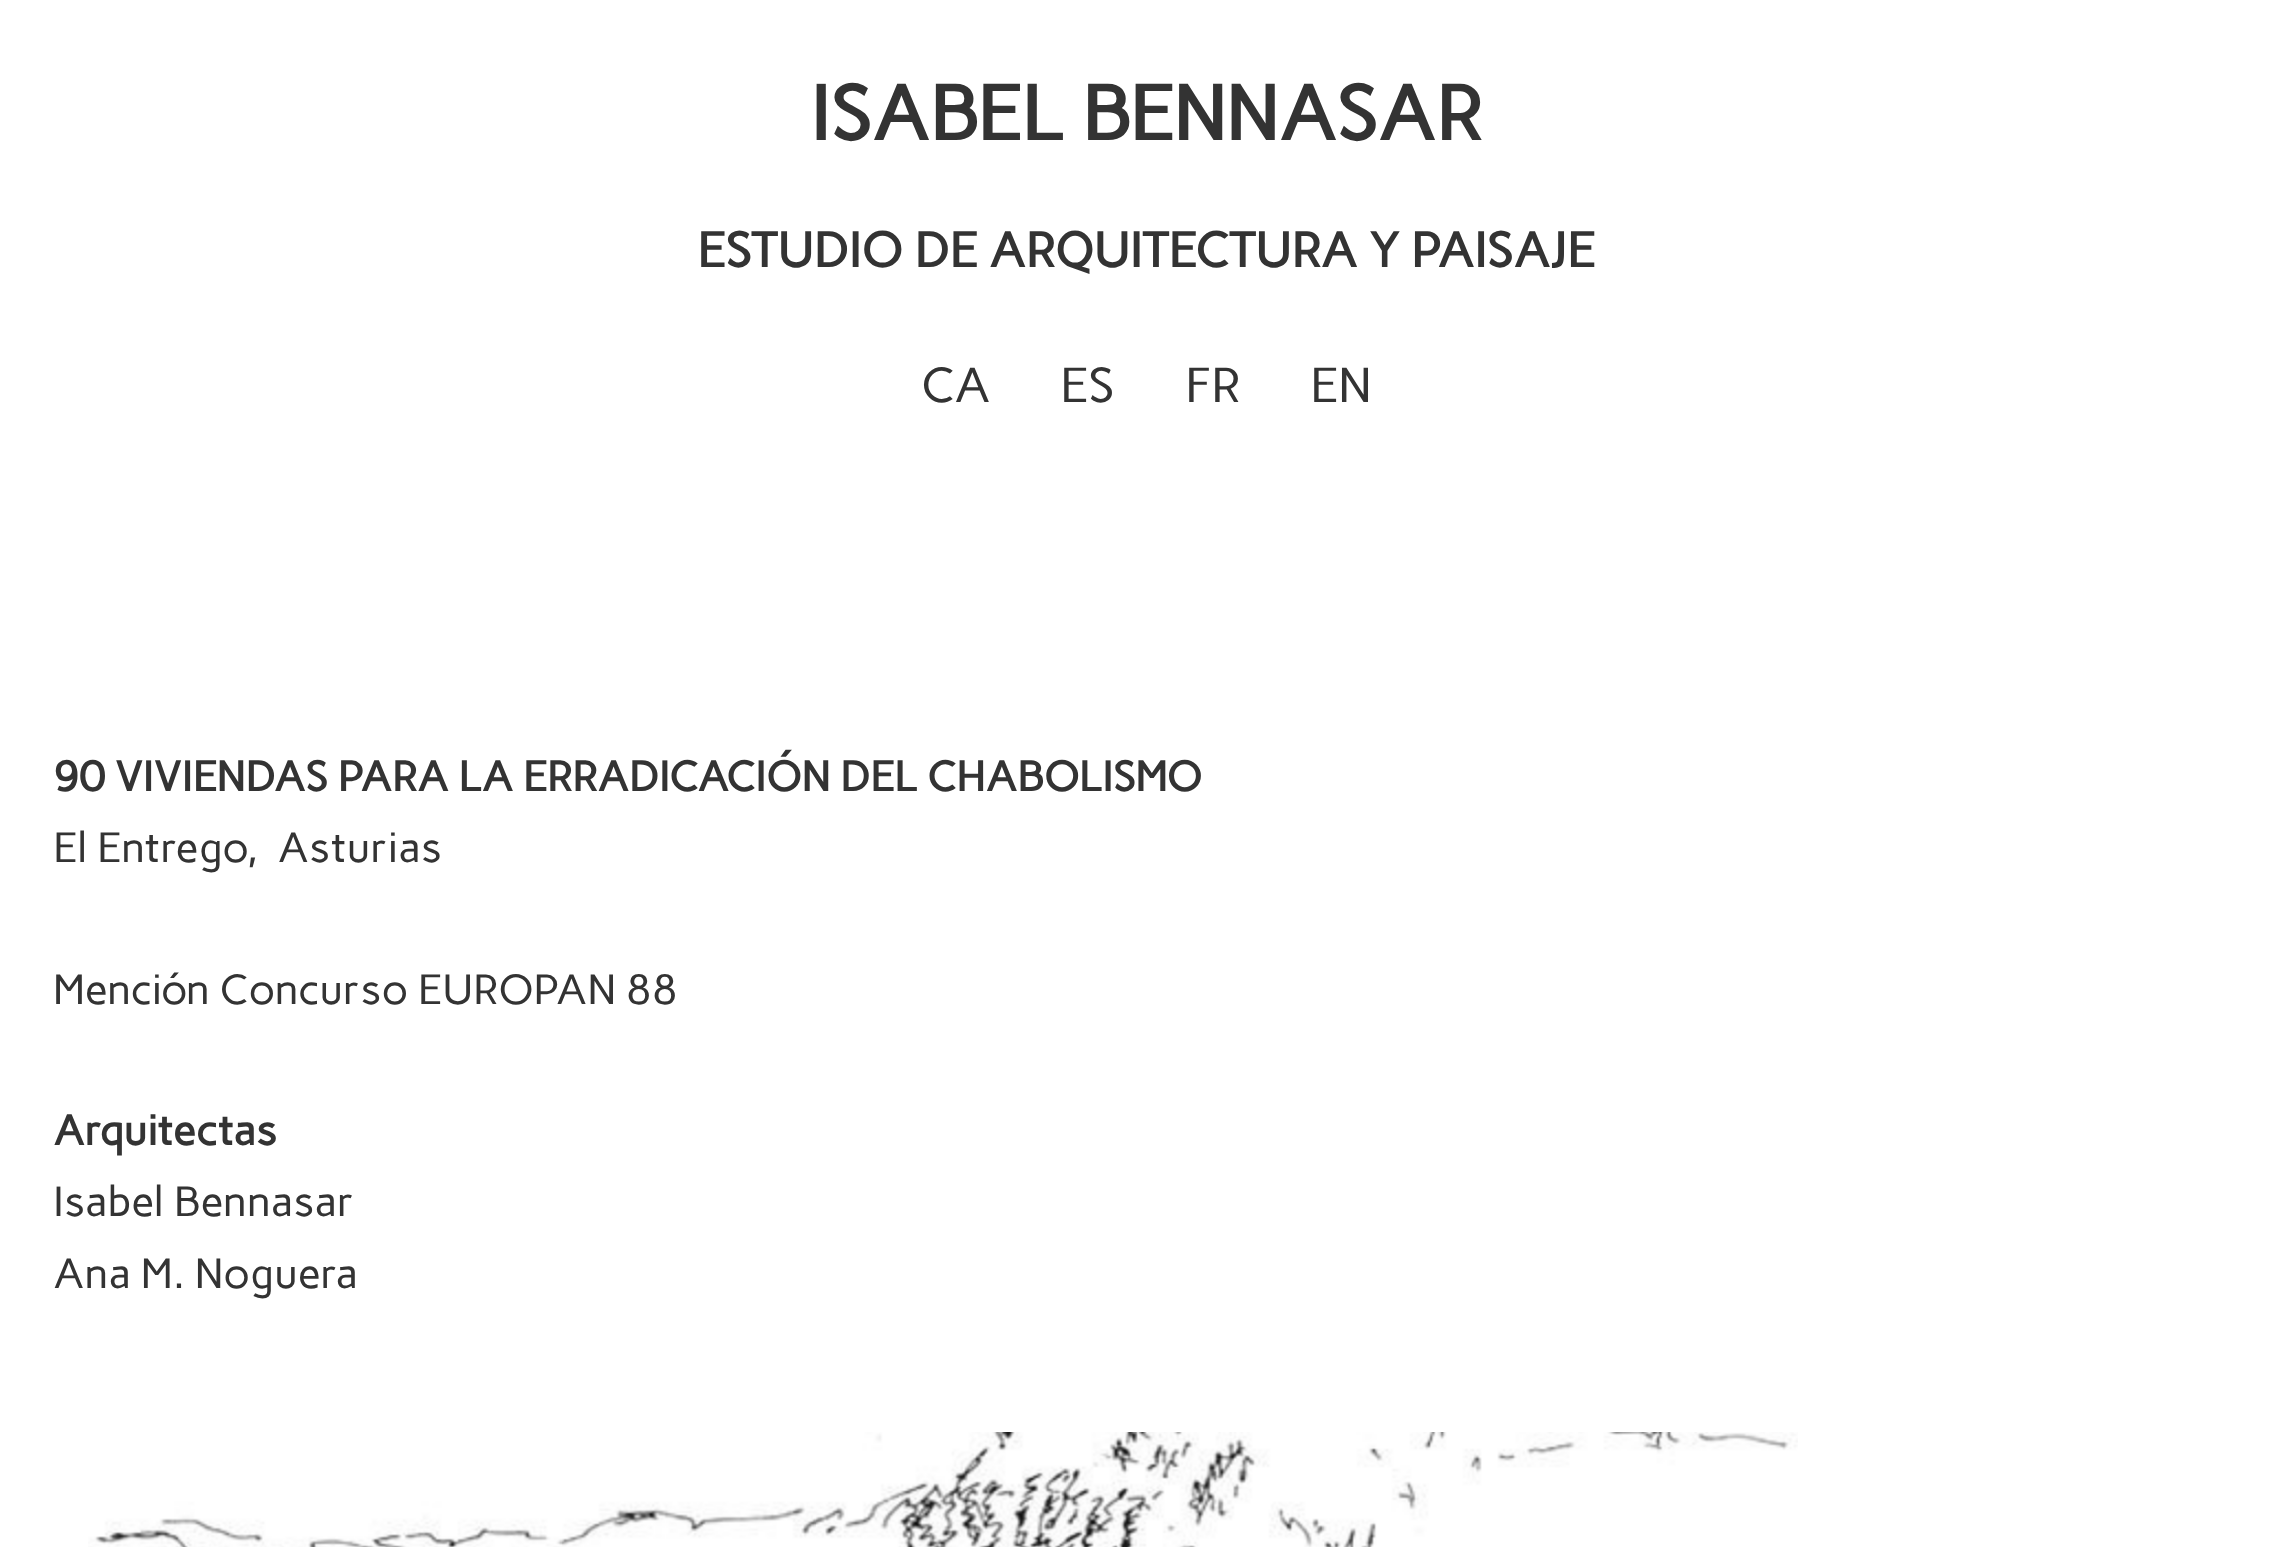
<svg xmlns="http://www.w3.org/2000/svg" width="2292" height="1547">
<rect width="100%" height="100%" fill="#fff"/>
<text x="810" y="140" style="font-family:Carme;font-size:77px;font-weight:bold;fill:#333">ISABEL BENNASAR</text>
<text x="697" y="267" style="font-family:Carme;font-size:49px;font-weight:bold;fill:#333">ESTUDIO DE ARQUITECTURA Y PAISAJE</text>
<text x="921" y="402" style="font-family:Carme;font-size:49px;fill:#333">CA</text>
<text x="1060" y="402" style="font-family:Carme;font-size:49px;fill:#333">ES</text>
<text x="1185" y="402" style="font-family:Carme;font-size:49px;fill:#333">FR</text>
<text x="1310" y="402" style="font-family:Carme;font-size:49px;fill:#333">EN</text>
<text x="53" y="791" style="font-family:Carme;font-size:42px;font-weight:bold;fill:#333">90 VIVIENDAS PARA LA ERRADICACIÓN DEL CHABOLISMO</text>
<text x="53" y="862" style="font-family:Carme;font-size:42px;fill:#333" xml:space="preserve">El Entrego,  Asturias</text>
<text x="53" y="1004" style="font-family:Carme;font-size:42px;fill:#333">Mención Concurso EUROPAN 88</text>
<text x="53" y="1145" style="font-family:Carme;font-size:42px;font-weight:bold;fill:#333">Arquitectas</text>
<text x="53" y="1216" style="font-family:Carme;font-size:42px;fill:#333">Isabel Bennasar</text>
<text x="53" y="1288" style="font-family:Carme;font-size:42px;fill:#333">Ana M. Noguera</text>
<image x="88" y="1432" width="1710" height="115" href="media/1.png"/>
</svg>
